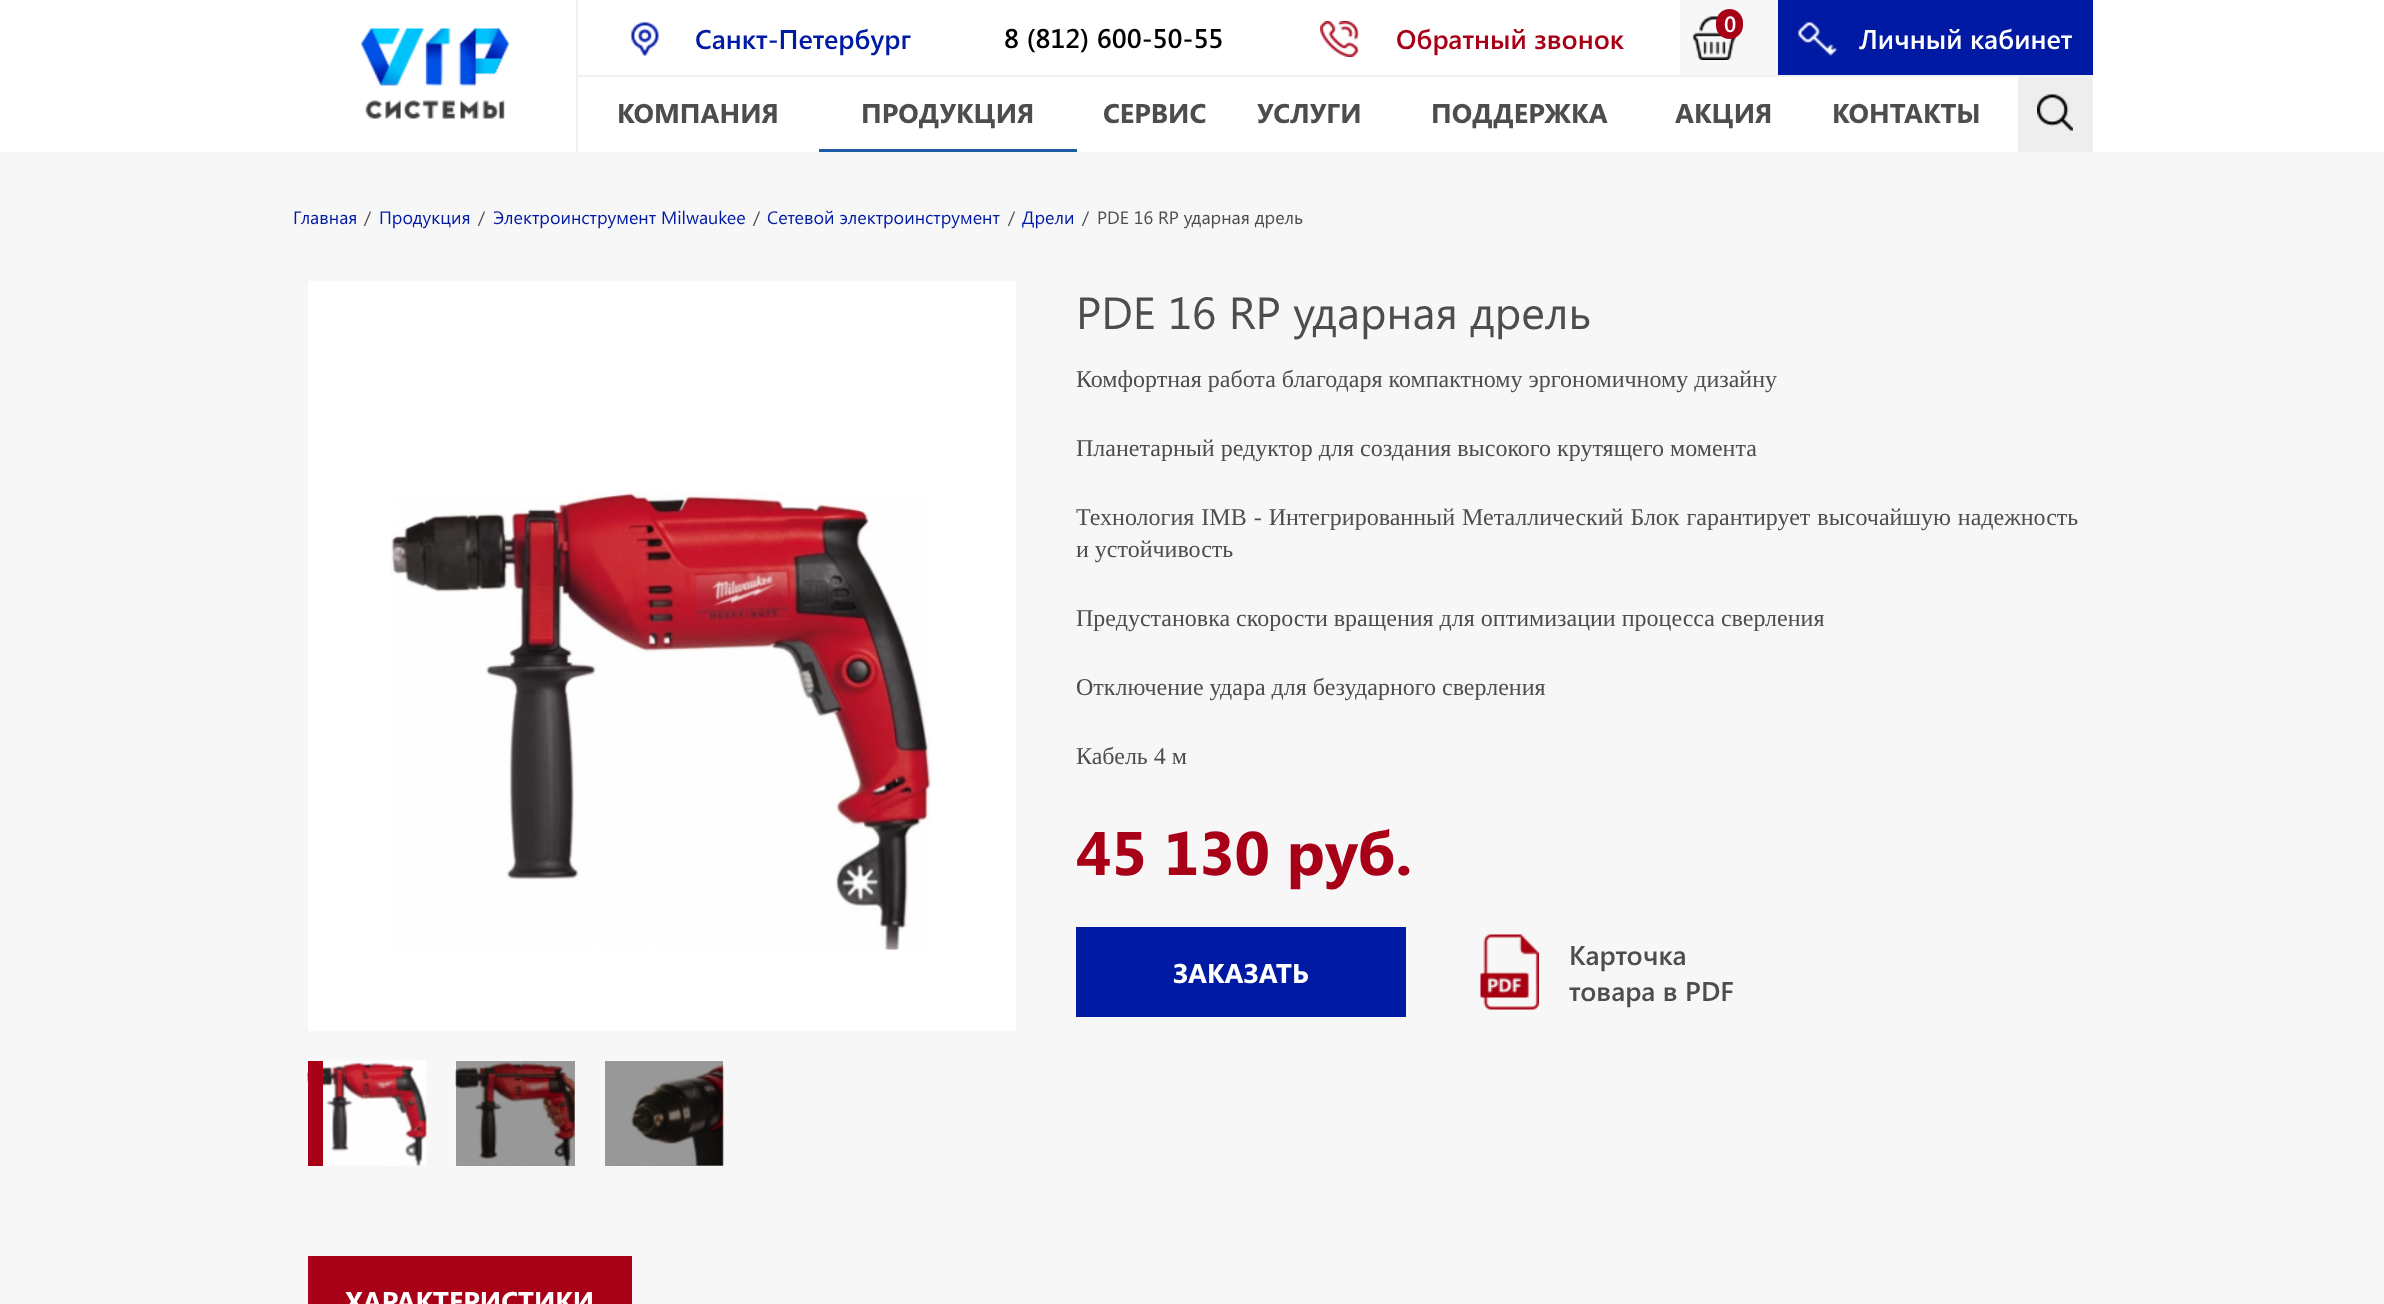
<svg xmlns="http://www.w3.org/2000/svg" width="2384" height="1304">
<rect width="100%" height="100%" fill="#fff"/>
<rect x="576" width="2" height="152" fill="#f1f1f1"/>
<image x="361" y="28" width="148" height="91" href="media/1.png"/>
<rect x="578" y="75" width="1440" height="2" fill="#f1f1f1"/>
<rect x="1680" width="98" height="75" fill="#f7f7f7"/>
<image x="1692" y="16" width="44" height="44" href="media/2.png"/>
<rect x="1716" y="9" width="27" height="30" rx="13.5" fill="#a70017"/>
<text x="1724" y="32" style="font-family:Segoe UI;font-size:22px;font-weight:600;fill:#fff">0</text>
<image x="630" y="22" width="29" height="34" href="media/3.png"/>
<text x="695" y="49" style="font-family:Segoe UI;font-size:27px;font-weight:600;fill:#001aa4">Санкт-Петербург</text>
<text x="1004" y="48" style="font-family:Segoe UI;font-size:27px;font-weight:600;fill:#000">8 (812) 600-50-55</text>
<image x="1320" y="21" width="39" height="36" href="media/4.png"/>
<text x="1396" y="49" style="font-family:Segoe UI;font-size:27px;font-weight:600;fill:#a70017">Обратный звонок</text>
<rect x="1778" width="315" height="75" fill="#001aa4"/>
<image x="1798" y="22" width="39" height="34" href="media/5.png"/>
<text x="1859" y="49" style="font-family:Segoe UI;font-size:27px;font-weight:600;fill:#fff">Личный кабинет</text>
<text x="617" y="123" style="font-family:Segoe UI;font-size:27px;font-weight:bold;fill:#4d4d4d">КОМПАНИЯ</text>
<rect x="819" y="149" width="258" height="3" fill="#1d5da5"/>
<text x="861" y="123" style="font-family:Segoe UI;font-size:27px;font-weight:bold;fill:#4d4d4d">ПРОДУКЦИЯ</text>
<text x="1103" y="123" style="font-family:Segoe UI;font-size:27px;font-weight:bold;fill:#4d4d4d">СЕРВИС</text>
<text x="1257" y="123" style="font-family:Segoe UI;font-size:27px;font-weight:bold;fill:#4d4d4d">УСЛУГИ</text>
<text x="1431" y="123" style="font-family:Segoe UI;font-size:27px;font-weight:bold;fill:#4d4d4d">ПОДДЕРЖКА</text>
<text x="1675" y="123" style="font-family:Segoe UI;font-size:27px;font-weight:bold;fill:#4d4d4d">АКЦИЯ</text>
<text x="1832" y="123" style="font-family:Segoe UI;font-size:27px;font-weight:bold;fill:#4d4d4d">КОНТАКТЫ</text>
<rect x="2018" y="75" width="75" height="77" fill="#eee"/>
<image x="2037" y="94" width="36" height="37" href="media/6.png"/>
<rect y="152" width="2384" height="1152" fill="#f7f7f7"/>
<text x="293" y="224" style="font-family:Segoe UI;font-size:18px;fill:#001aa4">Главная</text>
<text x="364" y="224" style="font-family:Segoe UI;font-size:18px;fill:#4d4d4d">/</text>
<text x="379" y="224" style="font-family:Segoe UI;font-size:18px;fill:#001aa4">Продукция</text>
<text x="478" y="224" style="font-family:Segoe UI;font-size:18px;fill:#4d4d4d">/</text>
<text x="493" y="224" style="font-family:Segoe UI;font-size:18px;fill:#001aa4">Электроинструмент Milwaukee</text>
<text x="753" y="224" style="font-family:Segoe UI;font-size:18px;fill:#4d4d4d">/</text>
<text x="767" y="224" style="font-family:Segoe UI;font-size:18px;fill:#001aa4">Сетевой электроинструмент</text>
<text x="1008" y="224" style="font-family:Segoe UI;font-size:18px;fill:#4d4d4d">/</text>
<text x="1022" y="224" style="font-family:Segoe UI;font-size:18px;fill:#001aa4">Дрели</text>
<text x="1082" y="224" style="font-family:Segoe UI;font-size:18px;fill:#4d4d4d">/</text>
<text x="1097" y="224" style="font-family:Segoe UI;font-size:18px;fill:#4d4d4d">PDE 16 RP ударная дрель</text>
<rect x="308" y="281" width="708" height="750" fill="#fff"/>
<image x="390" y="493" width="541" height="457" href="media/7.png"/>
<rect x="323" y="1061" width="103" height="105" fill="#fff"/>
<image x="307" y="1060" width="120" height="106" href="media/8.png"/>
<rect x="308" y="1061" width="15" height="105" fill="#a70017"/>
<rect x="456" y="1061" width="119" height="105" fill="#999"/>
<image x="455" y="1060" width="120" height="106" href="media/9.png"/>
<rect x="605" y="1061" width="118" height="105" fill="#999"/>
<image x="607" y="1060" width="117" height="106" href="media/10.png"/>
<text x="1076" y="329" style="font-family:Segoe UI;font-size:45px;fill:#4d4d4d">PDE 16 RP ударная дрель</text>
<text x="1076" y="387" style="font-family:Liberation Serif;font-size:24px;fill:#4d4d4d">Комфортная работа благодаря компактному эргономичному дизайну</text>
<text x="1076" y="456" style="font-family:Liberation Serif;font-size:24px;fill:#4d4d4d">Планетарный редуктор для создания высокого крутящего момента</text>
<text x="1076" y="525" word-spacing="1" style="font-family:Liberation Serif;font-size:24px;fill:#4d4d4d">Технология IMB - Интегрированный Металлический Блок гарантирует высочайшую надежность</text>
<text x="1076" y="557" style="font-family:Liberation Serif;font-size:24px;fill:#4d4d4d">и устойчивость</text>
<text x="1076" y="626" style="font-family:Liberation Serif;font-size:24px;fill:#4d4d4d">Предустановка скорости вращения для оптимизации процесса сверления</text>
<text x="1076" y="695" style="font-family:Liberation Serif;font-size:24px;fill:#4d4d4d">Отключение удара для безударного сверления</text>
<text x="1076" y="764" style="font-family:Liberation Serif;font-size:24px;fill:#4d4d4d">Кабель 4 м</text>
<text x="1076" y="875" style="font-family:Segoe UI;font-size:61.5px;font-weight:bold;fill:#a70017">45 130 руб.</text>
<rect x="1076" y="927" width="330" height="90" fill="#001aa4"/>
<text x="1173" y="983" style="font-family:Segoe UI;font-size:27px;font-weight:bold;fill:#fff">ЗАКАЗАТЬ</text>
<image x="1480" y="934" width="59" height="76" href="media/11.png"/>
<text x="1569" y="965" style="font-family:Segoe UI;font-size:27px;font-weight:600;fill:#4d4d4d">Карточка</text>
<text x="1569" y="1001" style="font-family:Segoe UI;font-size:27px;font-weight:600;fill:#4d4d4d">товара в PDF</text>
<rect x="308" y="1256" width="324" height="48" fill="#a70017"/>
<text x="345" y="1311" style="font-family:Segoe UI;font-size:27px;font-weight:bold;fill:#fff">ХАРАКТЕРИСТИКИ</text>
</svg>
